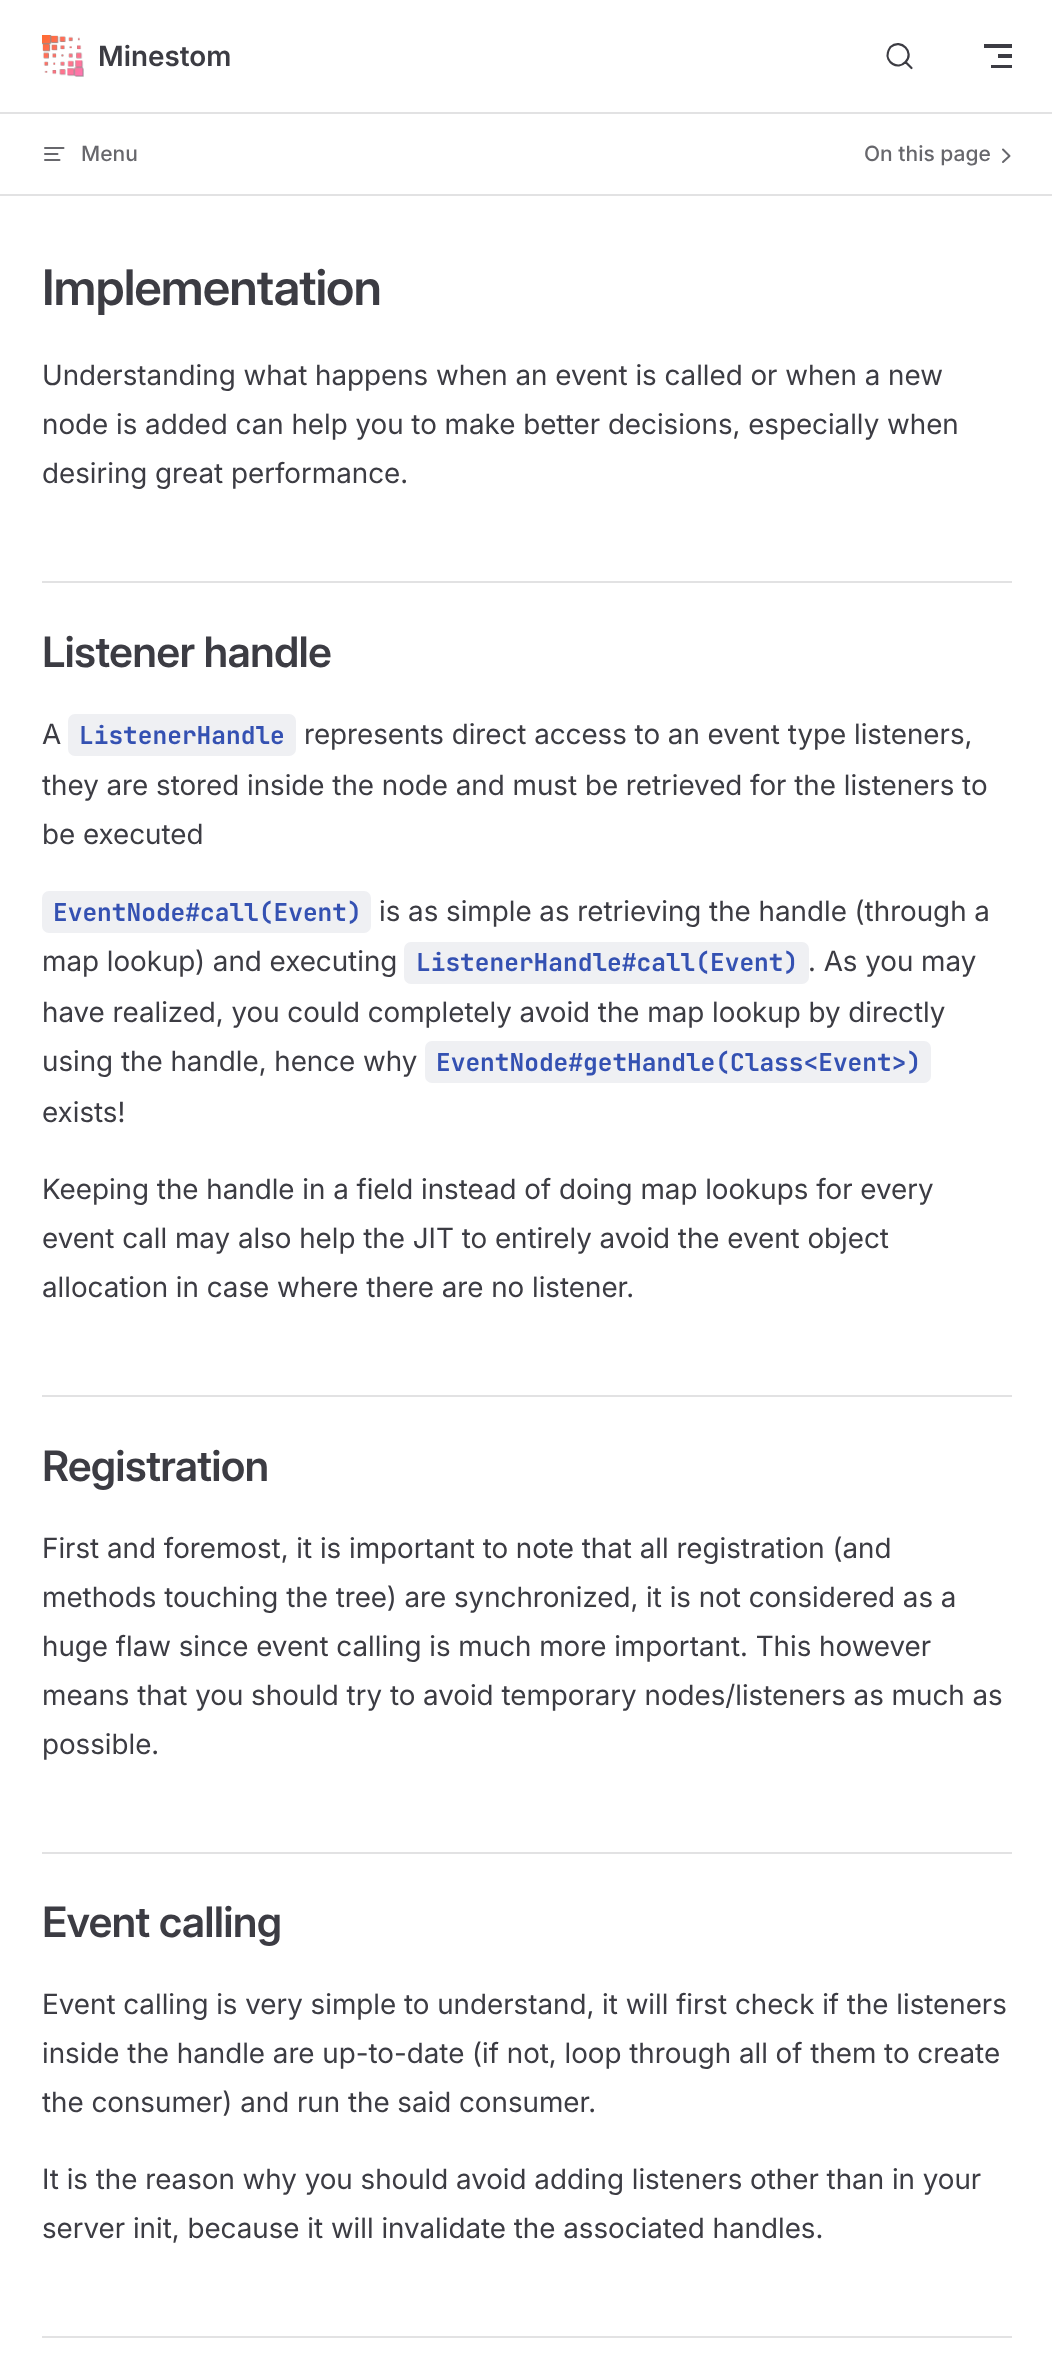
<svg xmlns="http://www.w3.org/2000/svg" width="1052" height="2359">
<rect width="100%" height="100%" fill="#fff"/>
<image x="42" y="35" width="42" height="42" href="media/1.png"/>
<text x="98" y="66" style="font-family:'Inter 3';font-size:28px;font-weight:600;fill:#3c3c43">Minestom</text>
<path d="M905.5 62l6 6l-6-6c-7.5 8-20.5 .5-17.5-10c.5-2 1.5-3.5 2.5-5c10.5-9 24.5 5.5 15 15z" fill="none" stroke="#3c3c43" stroke-width="2.2" stroke-linecap="round" stroke-linejoin="round"/>
<rect x="984" y="44" width="28" height="4" fill="#3c3c43"/>
<rect x="998" y="54" width="14" height="4" fill="#3c3c43"/>
<rect x="991" y="65" width="21" height="3" fill="#3c3c43"/>
<rect y="112" width="1052" height="2" fill="#e2e2e3"/>
<rect y="194" width="1052" height="2" fill="#e2e2e3"/>
<path d="M63.5 148h-18.5m12.5 6h-12.5m14.5 6h-14.5" fill="none" stroke="#67676c" stroke-width="2" stroke-linecap="round" stroke-linejoin="round"/>
<text x="81" y="161" style="font-family:Inter;font-size:21px;font-weight:500;fill:#67676c">Menu</text>
<text x="864" y="161" style="font-family:Inter;font-size:21px;font-weight:500;fill:#67676c">On this page</text>
<path d="M1003 162l6.5-6l-6.5-6.5" fill="none" stroke="#67676c" stroke-width="2" stroke-linecap="round" stroke-linejoin="round"/>
<text x="42" y="305" style="font-family:Inter;font-size:49px;font-weight:600;letter-spacing:-1px;fill:#3c3c43">Implementation</text>
<text x="42" y="385" style="font-family:Inter;font-size:28px;fill:#3c3c43">Understanding what happens when an event is called or when a new</text>
<text x="42" y="434" style="font-family:Inter;font-size:28px;fill:#3c3c43">node is added can help you to make better decisions, especially when</text>
<text x="42" y="483" style="font-family:Inter;font-size:28px;fill:#3c3c43">desiring great performance.</text>
<rect x="42" y="581" width="970" height="2" fill="#e2e2e3"/>
<text x="42" y="667" style="font-family:'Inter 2';font-size:42px;font-weight:600;letter-spacing:-0.8px;fill:#3c3c43">Listener handle</text>
<text x="42" y="744" style="font-family:Inter;font-size:28px;fill:#3c3c43">A</text>
<rect x="68" y="714" width="228" height="42" rx="7" fill="#eff0f3"/>
<text x="79" y="744" style="font-family:JetBrains Mono;font-size:24.5px;font-weight:bold;fill:#3451b2">ListenerHandle</text>
<text x="304" y="744" style="font-family:Inter;font-size:28px;fill:#3c3c43">represents direct access to an event type listeners,</text>
<text x="42" y="795" style="font-family:Inter;font-size:28px;fill:#3c3c43">they are stored inside the node and must be retrieved for the listeners to</text>
<text x="42" y="844" style="font-family:Inter;font-size:28px;fill:#3c3c43">be executed</text>
<rect x="42" y="891" width="329" height="42" rx="7" fill="#eff0f3"/>
<text x="53" y="921" style="font-family:JetBrains Mono;font-size:24.5px;font-weight:bold;fill:#3451b2">EventNode#call(Event)</text>
<text x="379" y="921" style="font-family:Inter;font-size:28px;fill:#3c3c43">is as simple as retrieving the handle (through a</text>
<text x="42" y="971" style="font-family:Inter;font-size:28px;fill:#3c3c43">map lookup) and executing</text>
<rect x="404" y="942" width="405" height="42" rx="7" fill="#eff0f3"/>
<text x="416" y="971" style="font-family:JetBrains Mono;font-size:24.5px;font-weight:bold;fill:#3451b2">ListenerHandle#call(Event)</text>
<text x="808" y="971" style="font-family:Inter;font-size:28px;fill:#3c3c43">. As you may</text>
<text x="42" y="1022" style="font-family:Inter;font-size:28px;fill:#3c3c43">have realized, you could completely avoid the map lookup by directly</text>
<text x="42" y="1071" style="font-family:Inter;font-size:28px;fill:#3c3c43">using the handle, hence why</text>
<rect x="425" y="1041" width="506" height="42" rx="7" fill="#eff0f3"/>
<text x="436" y="1071" style="font-family:JetBrains Mono;font-size:24.5px;font-weight:bold;fill:#3451b2">EventNode#getHandle(Class&lt;Event&gt;)</text>
<text x="42" y="1122" style="font-family:Inter;font-size:28px;fill:#3c3c43">exists!</text>
<text x="42" y="1199" style="font-family:Inter;font-size:28px;fill:#3c3c43">Keeping the handle in a field instead of doing map lookups for every</text>
<text x="42" y="1248" style="font-family:Inter;font-size:28px;fill:#3c3c43">event call may also help the JIT to entirely avoid the event object</text>
<text x="42" y="1297" style="font-family:Inter;font-size:28px;fill:#3c3c43">allocation in case where there are no listener.</text>
<rect x="42" y="1395" width="970" height="2" fill="#e2e2e3"/>
<text x="42" y="1481" style="font-family:'Inter 2';font-size:42px;font-weight:600;letter-spacing:-0.8px;fill:#3c3c43">Registration</text>
<text x="42" y="1558" style="font-family:Inter;font-size:28px;fill:#3c3c43">First and foremost, it is important to note that all registration (and</text>
<text x="42" y="1607" style="font-family:Inter;font-size:28px;fill:#3c3c43">methods touching the tree) are synchronized, it is not considered as a</text>
<text x="42" y="1656" style="font-family:Inter;font-size:28px;fill:#3c3c43">huge flaw since event calling is much more important. This however</text>
<text x="42" y="1705" style="font-family:Inter;font-size:28px;fill:#3c3c43">means that you should try to avoid temporary nodes/listeners as much as</text>
<text x="42" y="1754" style="font-family:Inter;font-size:28px;fill:#3c3c43">possible.</text>
<rect x="42" y="1852" width="970" height="2" fill="#e2e2e3"/>
<text x="42" y="1937" style="font-family:'Inter 2';font-size:42px;font-weight:600;letter-spacing:-0.8px;fill:#3c3c43">Event calling</text>
<text x="42" y="2014" style="font-family:Inter;font-size:28px;fill:#3c3c43">Event calling is very simple to understand, it will first check if the listeners</text>
<text x="42" y="2063" style="font-family:Inter;font-size:28px;fill:#3c3c43">inside the handle are up-to-date (if not, loop through all of them to create</text>
<text x="42" y="2112" style="font-family:Inter;font-size:28px;fill:#3c3c43">the consumer) and run the said consumer.</text>
<text x="42" y="2189" style="font-family:Inter;font-size:28px;fill:#3c3c43">It is the reason why you should avoid adding listeners other than in your</text>
<text x="42" y="2238" style="font-family:Inter;font-size:28px;fill:#3c3c43">server init, because it will invalidate the associated handles.</text>
<rect x="42" y="2336" width="970" height="2" fill="#e2e2e3"/>
</svg>
